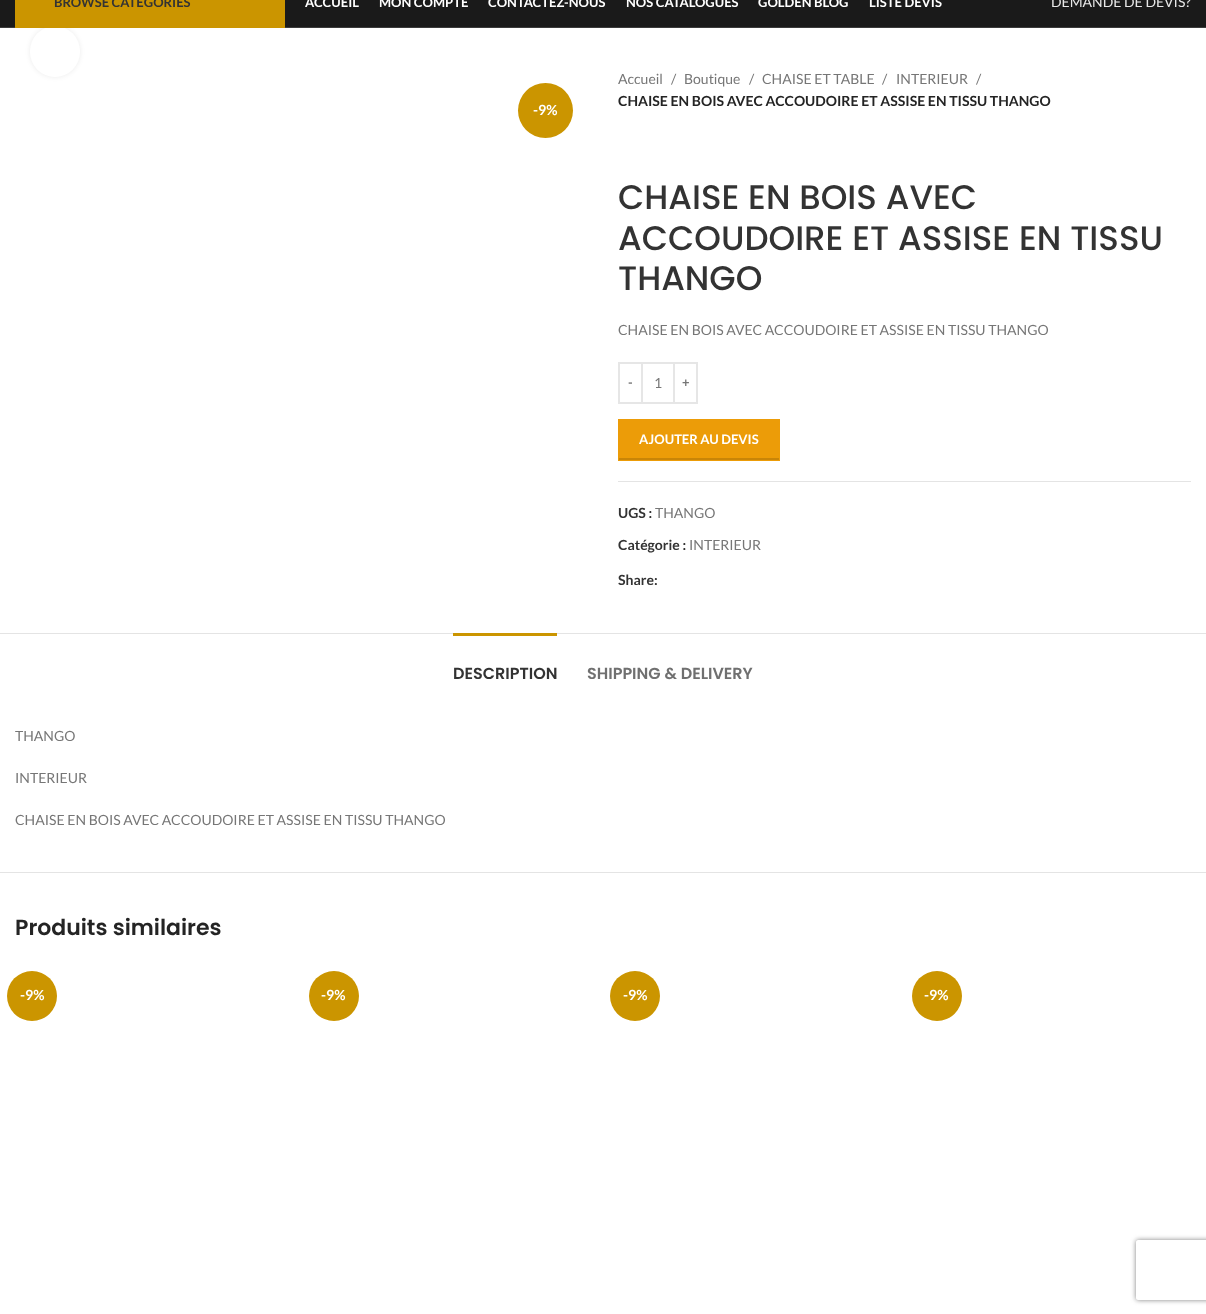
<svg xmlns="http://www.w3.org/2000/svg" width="1206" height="1314">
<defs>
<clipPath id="clip1"><path d="M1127 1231h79v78h-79zm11 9h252c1 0 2 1 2 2v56c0 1-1 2-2 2h-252c-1 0-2-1-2-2v-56c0-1 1-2 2-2z" clip-rule="evenodd"/></clipPath>
</defs>
<rect width="100%" height="100%" fill="#fff"/>
<rect x="30" y="26" width="50" height="51" rx="25" fill="#00000014" filter="blur(2.5px)"/>
<rect x="30" y="26" width="50" height="51" rx="25" fill="#fff"/>
<rect width="1206" height="27" fill="#1a1a1a"/>
<rect y="27" width="1206" height="1" fill="#3c3c3c"/>
<rect x="15" width="270" height="28" fill="#cb9500"/>
<text x="54" y="7" style="font-family:Lato;font-size:13px;font-weight:bold;fill:#333">BROWSE CATEGORIES</text>
<text x="305" y="7" style="font-family:Lato;font-size:13px;font-weight:bold;fill:#fff">ACCUEIL</text>
<text x="379" y="7" style="font-family:Lato;font-size:13px;font-weight:bold;fill:#fff">MON COMPTE</text>
<text x="488" y="7" style="font-family:Lato;font-size:13px;font-weight:bold;fill:#fff">CONTACTEZ-NOUS</text>
<text x="626" y="7" style="font-family:Lato;font-size:13px;font-weight:bold;fill:#fff">NOS CATALOGUES</text>
<text x="758" y="7" style="font-family:Lato;font-size:13px;font-weight:bold;fill:#fff">GOLDEN BLOG</text>
<text x="869" y="7" style="font-family:Lato;font-size:13px;font-weight:bold;fill:#fff">LISTE DEVIS</text>
<text x="1051" y="7" style="font-family:Lato;font-size:14px;fill:#e8e8e8">DEMANDE DE DEVIS?</text>
<circle cx="545.5" cy="110.5" r="27.5" fill="#cb9500"/>
<text x="533" y="115" style="font-family:Lato;font-size:14px;font-weight:bold;fill:#fff">-9%</text>
<text x="618" y="84" style="font-family:Lato;font-size:14px;fill:#767676">Accueil</text>
<text x="671" y="84" style="font-family:Lato;font-size:14px;fill:#767676">/</text>
<text x="684" y="84" style="font-family:Lato;font-size:14px;fill:#767676">Boutique</text>
<text x="749" y="84" style="font-family:Lato;font-size:14px;fill:#767676">/</text>
<text x="762" y="84" style="font-family:Lato;font-size:14px;fill:#767676">CHAISE ET TABLE</text>
<text x="882" y="84" style="font-family:Lato;font-size:14px;fill:#767676">/</text>
<text x="896" y="84" style="font-family:Lato;font-size:14px;fill:#767676">INTERIEUR</text>
<text x="976" y="84" style="font-family:Lato;font-size:14px;fill:#767676">/</text>
<text x="618" y="106" style="font-family:Lato;font-size:14px;font-weight:bold;fill:#242424">CHAISE EN BOIS AVEC ACCOUDOIRE ET ASSISE EN TISSU THANGO</text>
<text x="618" y="209" style="font-family:Poppins;font-size:34px;font-weight:500;fill:#333">CHAISE EN BOIS AVEC</text>
<text x="618" y="250" style="font-family:Poppins;font-size:34px;font-weight:500;fill:#333">ACCOUDOIRE ET ASSISE EN TISSU</text>
<text x="618" y="290" style="font-family:Poppins;font-size:34px;font-weight:500;fill:#333">THANGO</text>
<text x="618" y="335" style="font-family:Lato;font-size:14px;fill:#767676">CHAISE EN BOIS AVEC ACCOUDOIRE ET ASSISE EN TISSU THANGO</text>
<rect x="619" y="363" width="23" height="40" fill="none" stroke="#e6e6e6" stroke-width="2"/>
<text x="628" y="387" style="font-family:Lato;font-size:13px;font-weight:bold;fill:#767676">-</text>
<rect x="643" y="362" width="30" height="2" fill="#e6e6e6"/>
<rect x="643" y="402" width="30" height="2" fill="#e6e6e6"/>
<text x="654" y="388" style="font-family:Lato;font-size:14px;fill:#767676">1</text>
<rect x="674" y="363" width="23" height="40" fill="none" stroke="#e6e6e6" stroke-width="2"/>
<text x="682" y="387" style="font-family:Lato;font-size:13px;font-weight:bold;fill:#767676">+</text>
<rect x="618" y="419" width="162" height="42" fill="#ec9c08"/>
<rect x="619" y="458" width="160" height="2" fill="#c98507"/>
<text x="639" y="444" style="font-family:Lato;font-size:13px;font-weight:bold;fill:#fff">AJOUTER AU DEVIS</text>
<rect x="618" y="481" width="573" height="1" fill="#e4e4e4"/>
<text x="618" y="518" style="font-family:Lato;font-size:14px;font-weight:bold;fill:#333">UGS :</text>
<text x="655" y="518" style="font-family:Lato;font-size:14px;fill:#767676">THANGO</text>
<text x="618" y="550" style="font-family:Lato;font-size:14px;font-weight:bold;fill:#333">Catégorie :</text>
<text x="689" y="550" style="font-family:Lato;font-size:14px;fill:#767676">INTERIEUR</text>
<text x="618" y="585" style="font-family:Lato;font-size:14px;font-weight:bold;fill:#333">Share:</text>
<rect y="633" width="1206" height="1" fill="#e4e4e4"/>
<rect y="872" width="1206" height="1" fill="#e4e4e4"/>
<rect x="453" y="633" width="104" height="3" fill="#cb9500"/>
<text x="453" y="679" style="font-family:Poppins;font-size:16px;font-weight:600;fill:#333">DESCRIPTION</text>
<text x="587" y="679" style="font-family:Poppins;font-size:16px;font-weight:600;fill:#707070">SHIPPING &amp; DELIVERY</text>
<text x="15" y="741" style="font-family:Lato;font-size:14px;fill:#767676">THANGO</text>
<text x="15" y="783" style="font-family:Lato;font-size:14px;fill:#767676">INTERIEUR</text>
<text x="15" y="825" style="font-family:Lato;font-size:14px;fill:#767676">CHAISE EN BOIS AVEC ACCOUDOIRE ET ASSISE EN TISSU THANGO</text>
<text x="15" y="935" style="font-family:Poppins;font-size:22px;font-weight:600;fill:#242424">Produits similaires</text>
<circle cx="32" cy="996" r="25" fill="#cb9500"/>
<text x="20" y="1000" style="font-family:Lato;font-size:14px;font-weight:bold;fill:#fff">-9%</text>
<circle cx="334" cy="996" r="25" fill="#cb9500"/>
<text x="321" y="1000" style="font-family:Lato;font-size:14px;font-weight:bold;fill:#fff">-9%</text>
<circle cx="635" cy="996" r="25" fill="#cb9500"/>
<text x="623" y="1000" style="font-family:Lato;font-size:14px;font-weight:bold;fill:#fff">-9%</text>
<circle cx="937" cy="996" r="25" fill="#cb9500"/>
<text x="924" y="1000" style="font-family:Lato;font-size:14px;font-weight:bold;fill:#fff">-9%</text>
<g clip-path="url(#clip1)">
<rect x="1136" y="1240" width="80" height="60" rx="2" fill="#808080" filter="blur(2.5px)"/>
</g>
</svg>
